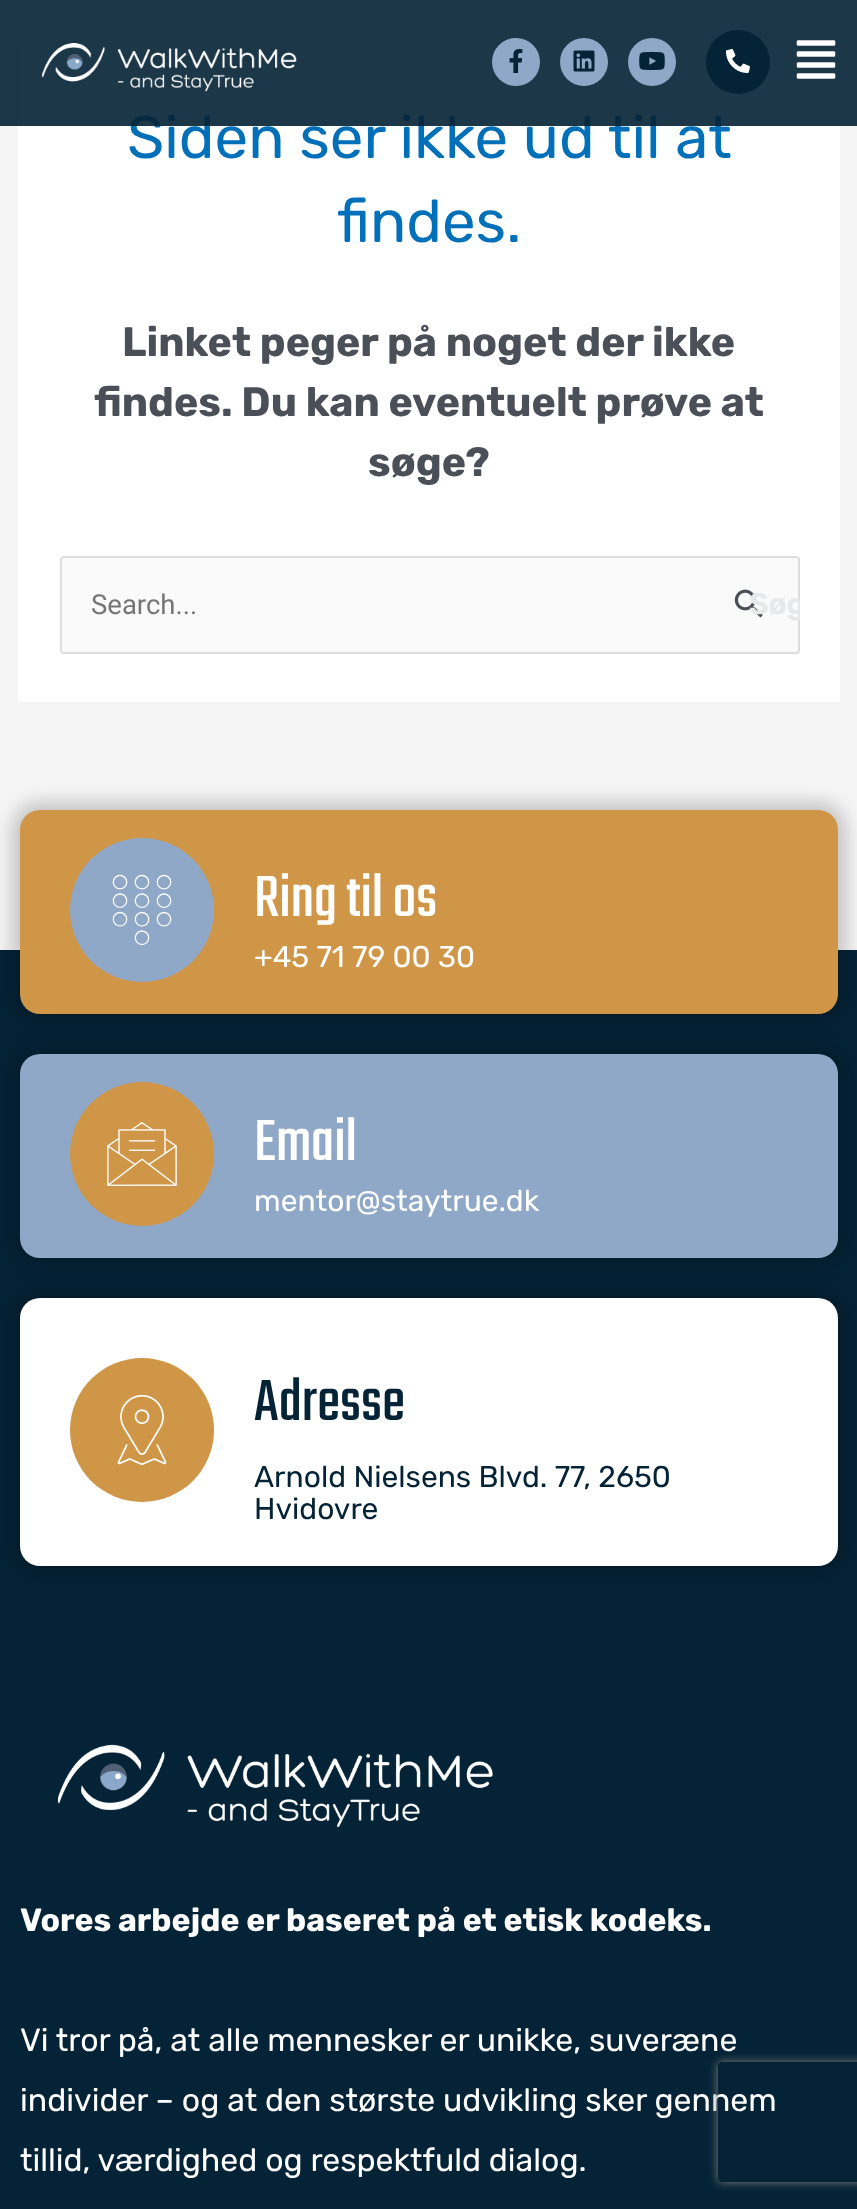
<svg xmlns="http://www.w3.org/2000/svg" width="857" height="2209">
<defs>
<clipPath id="clip1"><rect x="710" y="556" width="90" height="96" rx="4"/></clipPath>
<clipPath id="clip2"><path d="M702 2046h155v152h-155zm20 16h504c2 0 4 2 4 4v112c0 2-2 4-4 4h-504c-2 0-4-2-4-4v-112c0-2 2-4 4-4z" clip-rule="evenodd"/></clipPath>
</defs>
<rect width="100%" height="100%" fill="#f5f5f5"/>
<rect x="18" y="48" width="822" height="654" fill="#fff"/>
<text x="127" y="158" style="font-family:Rubik;font-size:60px;fill:#0170b9">Siden ser ikke ud til at</text>
<rect width="857" height="126" fill="#052336e8"/>
<image x="42" y="43" width="255" height="49" href="media/1.png"/>
<circle cx="516" cy="62" r="24" fill="#90a8c7"/>
<image x="509" y="49" width="14" height="24" href="media/2.png"/>
<circle cx="584" cy="62" r="24" fill="#90a8c7"/>
<image x="573" y="50" width="22" height="22" href="media/3.png"/>
<circle cx="652" cy="62" r="24" fill="#90a8c7"/>
<image x="639" y="52" width="26" height="18" href="media/4.png"/>
<circle cx="738" cy="62" r="32" fill="#052336"/>
<image x="726" y="49" width="24" height="24" href="media/5.png"/>
<image x="796" y="40" width="40" height="39" href="media/6.png"/>
<text x="337" y="242" style="font-family:Rubik;font-size:60px;fill:#0170b9">findes.</text>
<text x="122" y="356" style="font-family:Rubik;font-size:41px;font-weight:bold;fill:#4b4f58">Linket peger på noget der ikke</text>
<text x="94" y="416" style="font-family:Rubik;font-size:41px;font-weight:bold;fill:#4b4f58">findes. Du kan eventuelt prøve at</text>
<text x="368" y="476" style="font-family:Rubik;font-size:41px;font-weight:bold;fill:#4b4f58">søge?</text>
<rect x="61" y="557" width="738" height="96" rx="3" fill="#fafafa" stroke="#ddd" stroke-width="2"/>
<text x="91" y="614" style="font-family:Roboto;font-size:27.5px;fill:#757575">Search...</text>
<image x="734" y="589" width="29" height="29" href="media/7.png"/>
<g clip-path="url(#clip1)">
<text x="749" y="614" style="font-family:Rubik;font-size:30px;font-weight:600;fill:#e7e8e9">Søg</text>
</g>
<rect y="950" width="857" height="1259" fill="#052336"/>
<rect x="12" y="802" width="834" height="220" rx="28" fill="#00000033" filter="blur(9px)"/>
<rect x="20" y="810" width="818" height="204" rx="20" fill="#d09648"/>
<circle cx="142" cy="910" r="72" fill="#90a8c7"/>
<image x="112" y="874" width="60" height="71" href="media/8.png"/>
<text x="254" y="916" style="font-family:Teko;font-size:64px;fill:#fff">Ring til os</text>
<text x="254" y="967" style="font-family:Rubik;font-size:30px;fill:#fff">+45 71 79 00 30</text>
<rect x="12" y="1046" width="834" height="220" rx="28" fill="#00000033" filter="blur(9px)"/>
<rect x="20" y="1054" width="818" height="204" rx="20" fill="#90a8c7"/>
<circle cx="142" cy="1154" r="72" fill="#d09648"/>
<image x="107" y="1122" width="70" height="64" href="media/9.png"/>
<text x="254" y="1160" style="font-family:Teko;font-size:64px;fill:#fff">Email</text>
<text x="254" y="1211" style="font-family:Rubik;font-size:30px;fill:#fff">mentor@staytrue.dk</text>
<rect x="12" y="1290" width="834" height="284" rx="28" fill="#00000033" filter="blur(9px)"/>
<rect x="20" y="1298" width="818" height="268" rx="20" fill="#fff"/>
<circle cx="142" cy="1430" r="72" fill="#d09648"/>
<image x="117" y="1395" width="50" height="70" href="media/10.png"/>
<text x="254" y="1420" style="font-family:Teko;font-size:64px;fill:#052336">Adresse</text>
<text x="254" y="1487" style="font-family:Rubik;font-size:30px;fill:#052336">Arnold Nielsens Blvd. 77, 2650</text>
<text x="254" y="1519" style="font-family:Rubik;font-size:30px;fill:#052336">Hvidovre</text>
<image x="57" y="1744" width="436" height="83" href="media/11.png"/>
<text x="20" y="1931" style="font-family:Rubik;font-size:32px;font-weight:bold;fill:#fff">Vores arbejde er baseret på et etisk kodeks.</text>
<text x="20" y="2051" style="font-family:Rubik;font-size:32px;fill:#fff">Vi tror på, at alle mennesker er unikke, suveræne</text>
<text x="20" y="2111" style="font-family:Rubik;font-size:32px;fill:#fff">individer – og at den største udvikling sker gennem</text>
<text x="20" y="2171" style="font-family:Rubik;font-size:32px;fill:#fff">tillid, værdighed og respektfuld dialog.</text>
<g clip-path="url(#clip2)">
<rect x="718" y="2062" width="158" height="120" rx="4" fill="#808080" filter="blur(5px)"/>
</g>
</svg>
